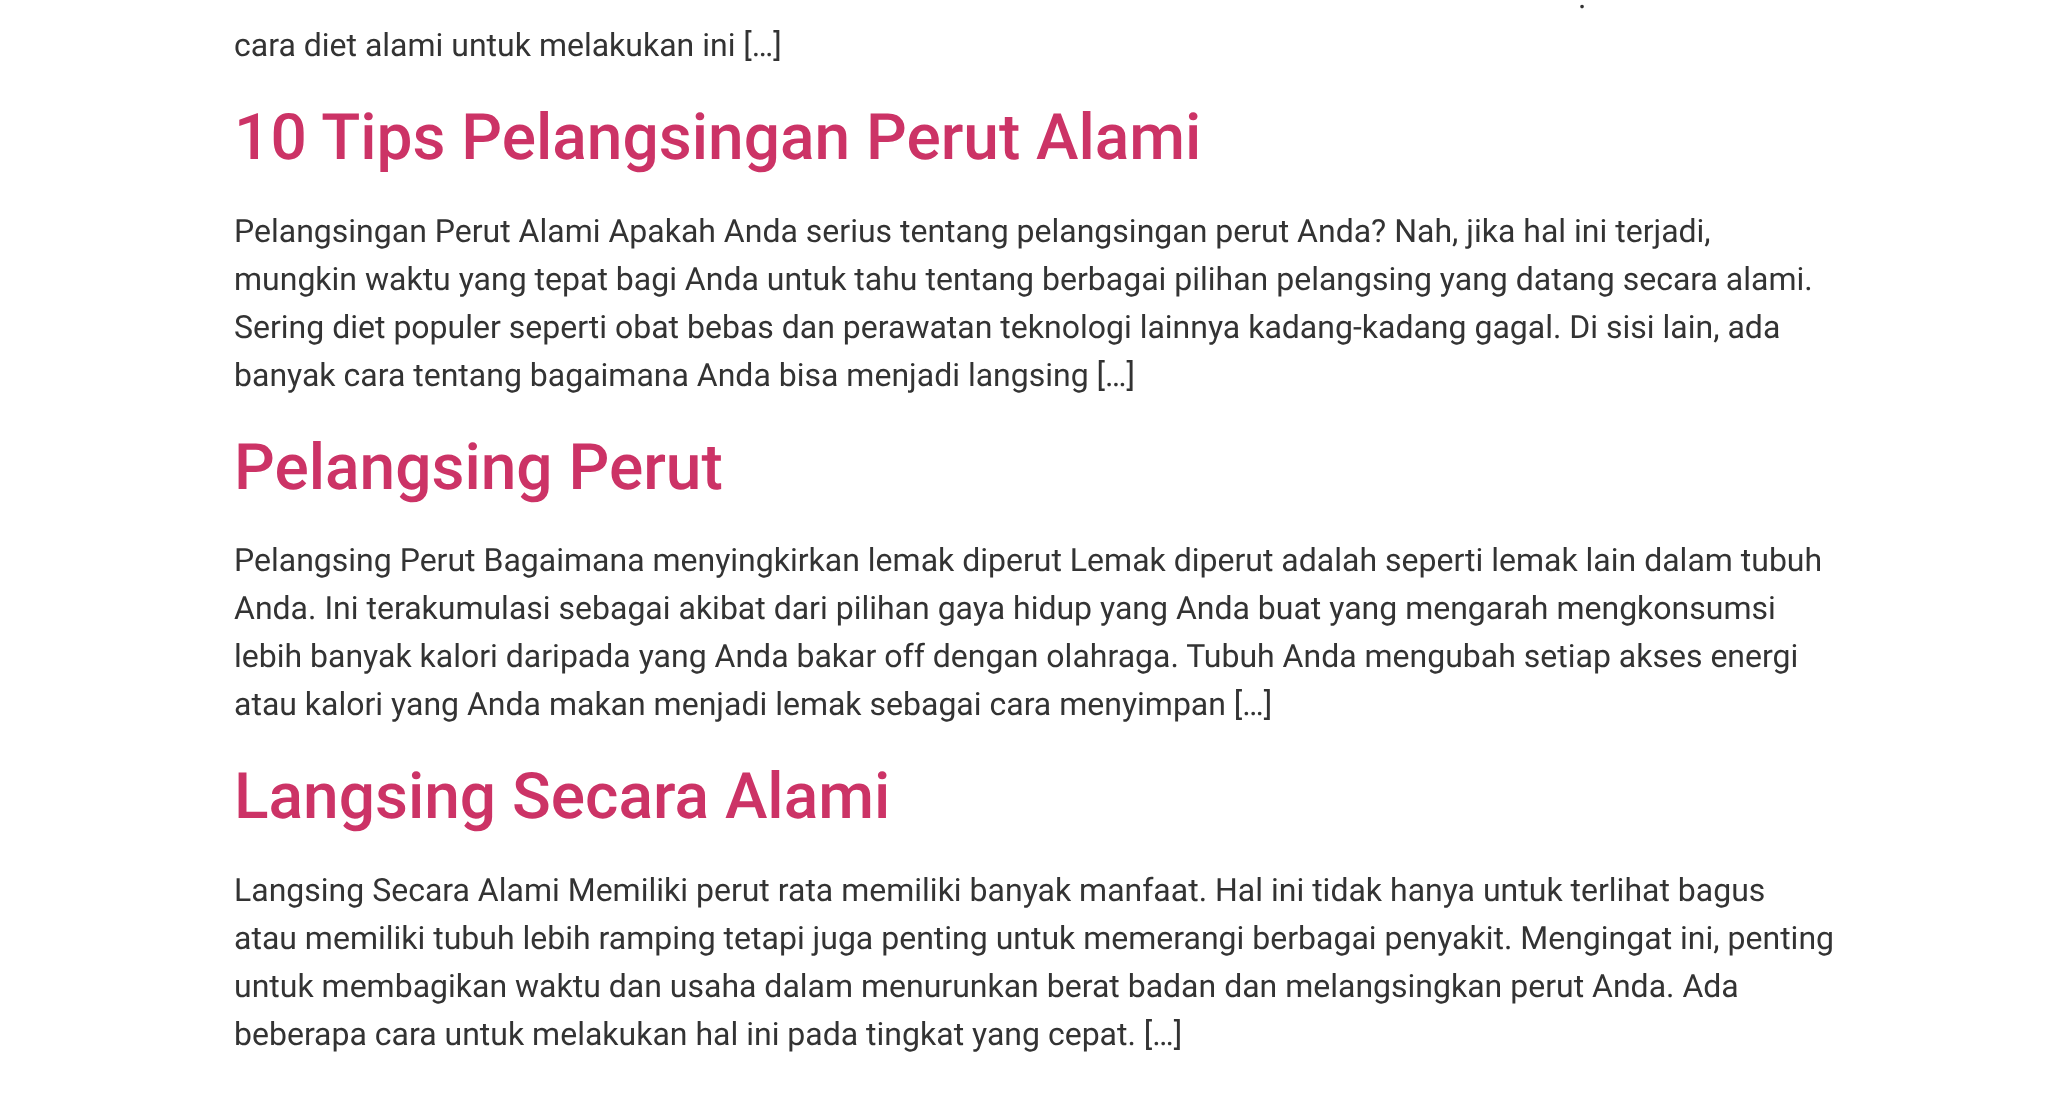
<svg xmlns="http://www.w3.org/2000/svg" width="2068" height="1108">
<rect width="100%" height="100%" fill="#fff"/>
<text x="1578" y="8" style="font-family:Roboto;font-size:32px;fill:#333">.</text>
<text x="234" y="56" style="font-family:Roboto;font-size:32px;fill:#333">cara diet alami untuk melakukan ini […]</text>
<text x="234" y="159" style="font-family:Roboto;font-size:64px;font-weight:500;fill:#c36">10 Tips Pelangsingan Perut Alami</text>
<text x="234" y="242" style="font-family:Roboto;font-size:32px;fill:#333">Pelangsingan Perut Alami Apakah Anda serius tentang pelangsingan perut Anda? Nah, jika hal ini terjadi,</text>
<text x="234" y="290" style="font-family:Roboto;font-size:32px;fill:#333">mungkin waktu yang tepat bagi Anda untuk tahu tentang berbagai pilihan pelangsing yang datang secara alami.</text>
<text x="234" y="338" style="font-family:Roboto;font-size:32px;fill:#333">Sering diet populer seperti obat bebas dan perawatan teknologi lainnya kadang-kadang gagal. Di sisi lain, ada</text>
<text x="234" y="386" style="font-family:Roboto;font-size:32px;fill:#333">banyak cara tentang bagaimana Anda bisa menjadi langsing […]</text>
<text x="234" y="489" style="font-family:Roboto;font-size:64px;font-weight:500;fill:#c36">Pelangsing Perut</text>
<text x="234" y="571" style="font-family:Roboto;font-size:32px;fill:#333">Pelangsing Perut Bagaimana menyingkirkan lemak diperut Lemak diperut adalah seperti lemak lain dalam tubuh</text>
<text x="234" y="619" style="font-family:Roboto;font-size:32px;fill:#333">Anda. Ini terakumulasi sebagai akibat dari pilihan gaya hidup yang Anda buat yang mengarah mengkonsumsi</text>
<text x="234" y="667" style="font-family:Roboto;font-size:32px;fill:#333">lebih banyak kalori daripada yang Anda bakar off dengan olahraga. Tubuh Anda mengubah setiap akses energi</text>
<text x="234" y="715" style="font-family:Roboto;font-size:32px;fill:#333">atau kalori yang Anda makan menjadi lemak sebagai cara menyimpan […]</text>
<text x="234" y="818" style="font-family:Roboto;font-size:64px;font-weight:500;fill:#c36">Langsing Secara Alami</text>
<text x="234" y="901" style="font-family:Roboto;font-size:32px;fill:#333">Langsing Secara Alami Memiliki perut rata memiliki banyak manfaat. Hal ini tidak hanya untuk terlihat bagus</text>
<text x="234" y="949" style="font-family:Roboto;font-size:32px;fill:#333">atau memiliki tubuh lebih ramping tetapi juga penting untuk memerangi berbagai penyakit. Mengingat ini, penting</text>
<text x="234" y="997" style="font-family:Roboto;font-size:32px;fill:#333">untuk membagikan waktu dan usaha dalam menurunkan berat badan dan melangsingkan perut Anda. Ada</text>
<text x="234" y="1045" style="font-family:Roboto;font-size:32px;fill:#333">beberapa cara untuk melakukan hal ini pada tingkat yang cepat. […]</text>
</svg>
